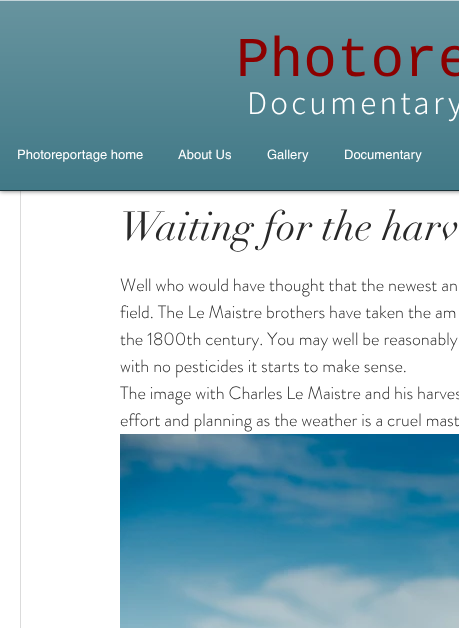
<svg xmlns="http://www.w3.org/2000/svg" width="459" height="628">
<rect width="100%" height="100%" fill="#fff"/>
<rect x="20.5" y="121.5" width="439" height="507" fill="none" stroke="#dbdbdb"/>
<rect width="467" height="191" fill="#00000099" filter="blur(2.5px)"/>
<rect y="1" width="459" height="189" fill="#336f7e"/>
<image x="0" y="1" width="459" height="189" href="media/1.png"/>
<rect y="190" width="459" height="1" fill="#1a3036"/>
<rect width="459" height="1" fill="#c3d4d9"/>
<text x="236" y="76" style="font-family:Liberation Mono;font-size:56px;fill:#8b0000">Photore</text>
<text x="247" y="114" style="font-family:Assistant;font-size:33px;font-weight:300;letter-spacing:3.25px;fill:#fff">Documentary</text>
<text x="17" y="159" style="font-family:helvetica;font-size:13px;fill:#fff">Photoreportage home</text>
<text x="178" y="159" style="font-family:helvetica;font-size:13px;fill:#fff">About Us</text>
<text x="267" y="159" style="font-family:helvetica;font-size:13px;fill:#fff">Gallery</text>
<text x="344" y="159" style="font-family:helvetica;font-size:13px;fill:#fff">Documentary</text>
<text x="120" y="240" style="font-family:didot;font-size:40px;fill:#292929">Waiting for the harv</text>
<text x="120" y="291" style="font-family:'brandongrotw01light';font-size:18px;font-weight:300;fill:#292929">Well who would have thought that the newest an</text>
<text x="120" y="318" style="font-family:'brandongrotw01light';font-size:18px;font-weight:300;fill:#292929">field. The Le Maistre brothers have taken the am</text>
<text x="120" y="345" style="font-family:'brandongrotw01light';font-size:18px;font-weight:300;fill:#292929">the 1800th century. You may well be reasonably</text>
<text x="120" y="372" style="font-family:'brandongrotw01light';font-size:18px;font-weight:300;fill:#292929">with no pesticides it starts to make sense.</text>
<text x="120" y="399" style="font-family:'brandongrotw01light';font-size:18px;font-weight:300;fill:#292929">The image with Charles Le Maistre and his harves</text>
<text x="120" y="426" style="font-family:'brandongrotw01light';font-size:18px;font-weight:300;fill:#292929">effort and planning as the weather is a cruel mast</text>
<image x="120" y="434" width="339" height="194" href="media/2.png"/>
</svg>
